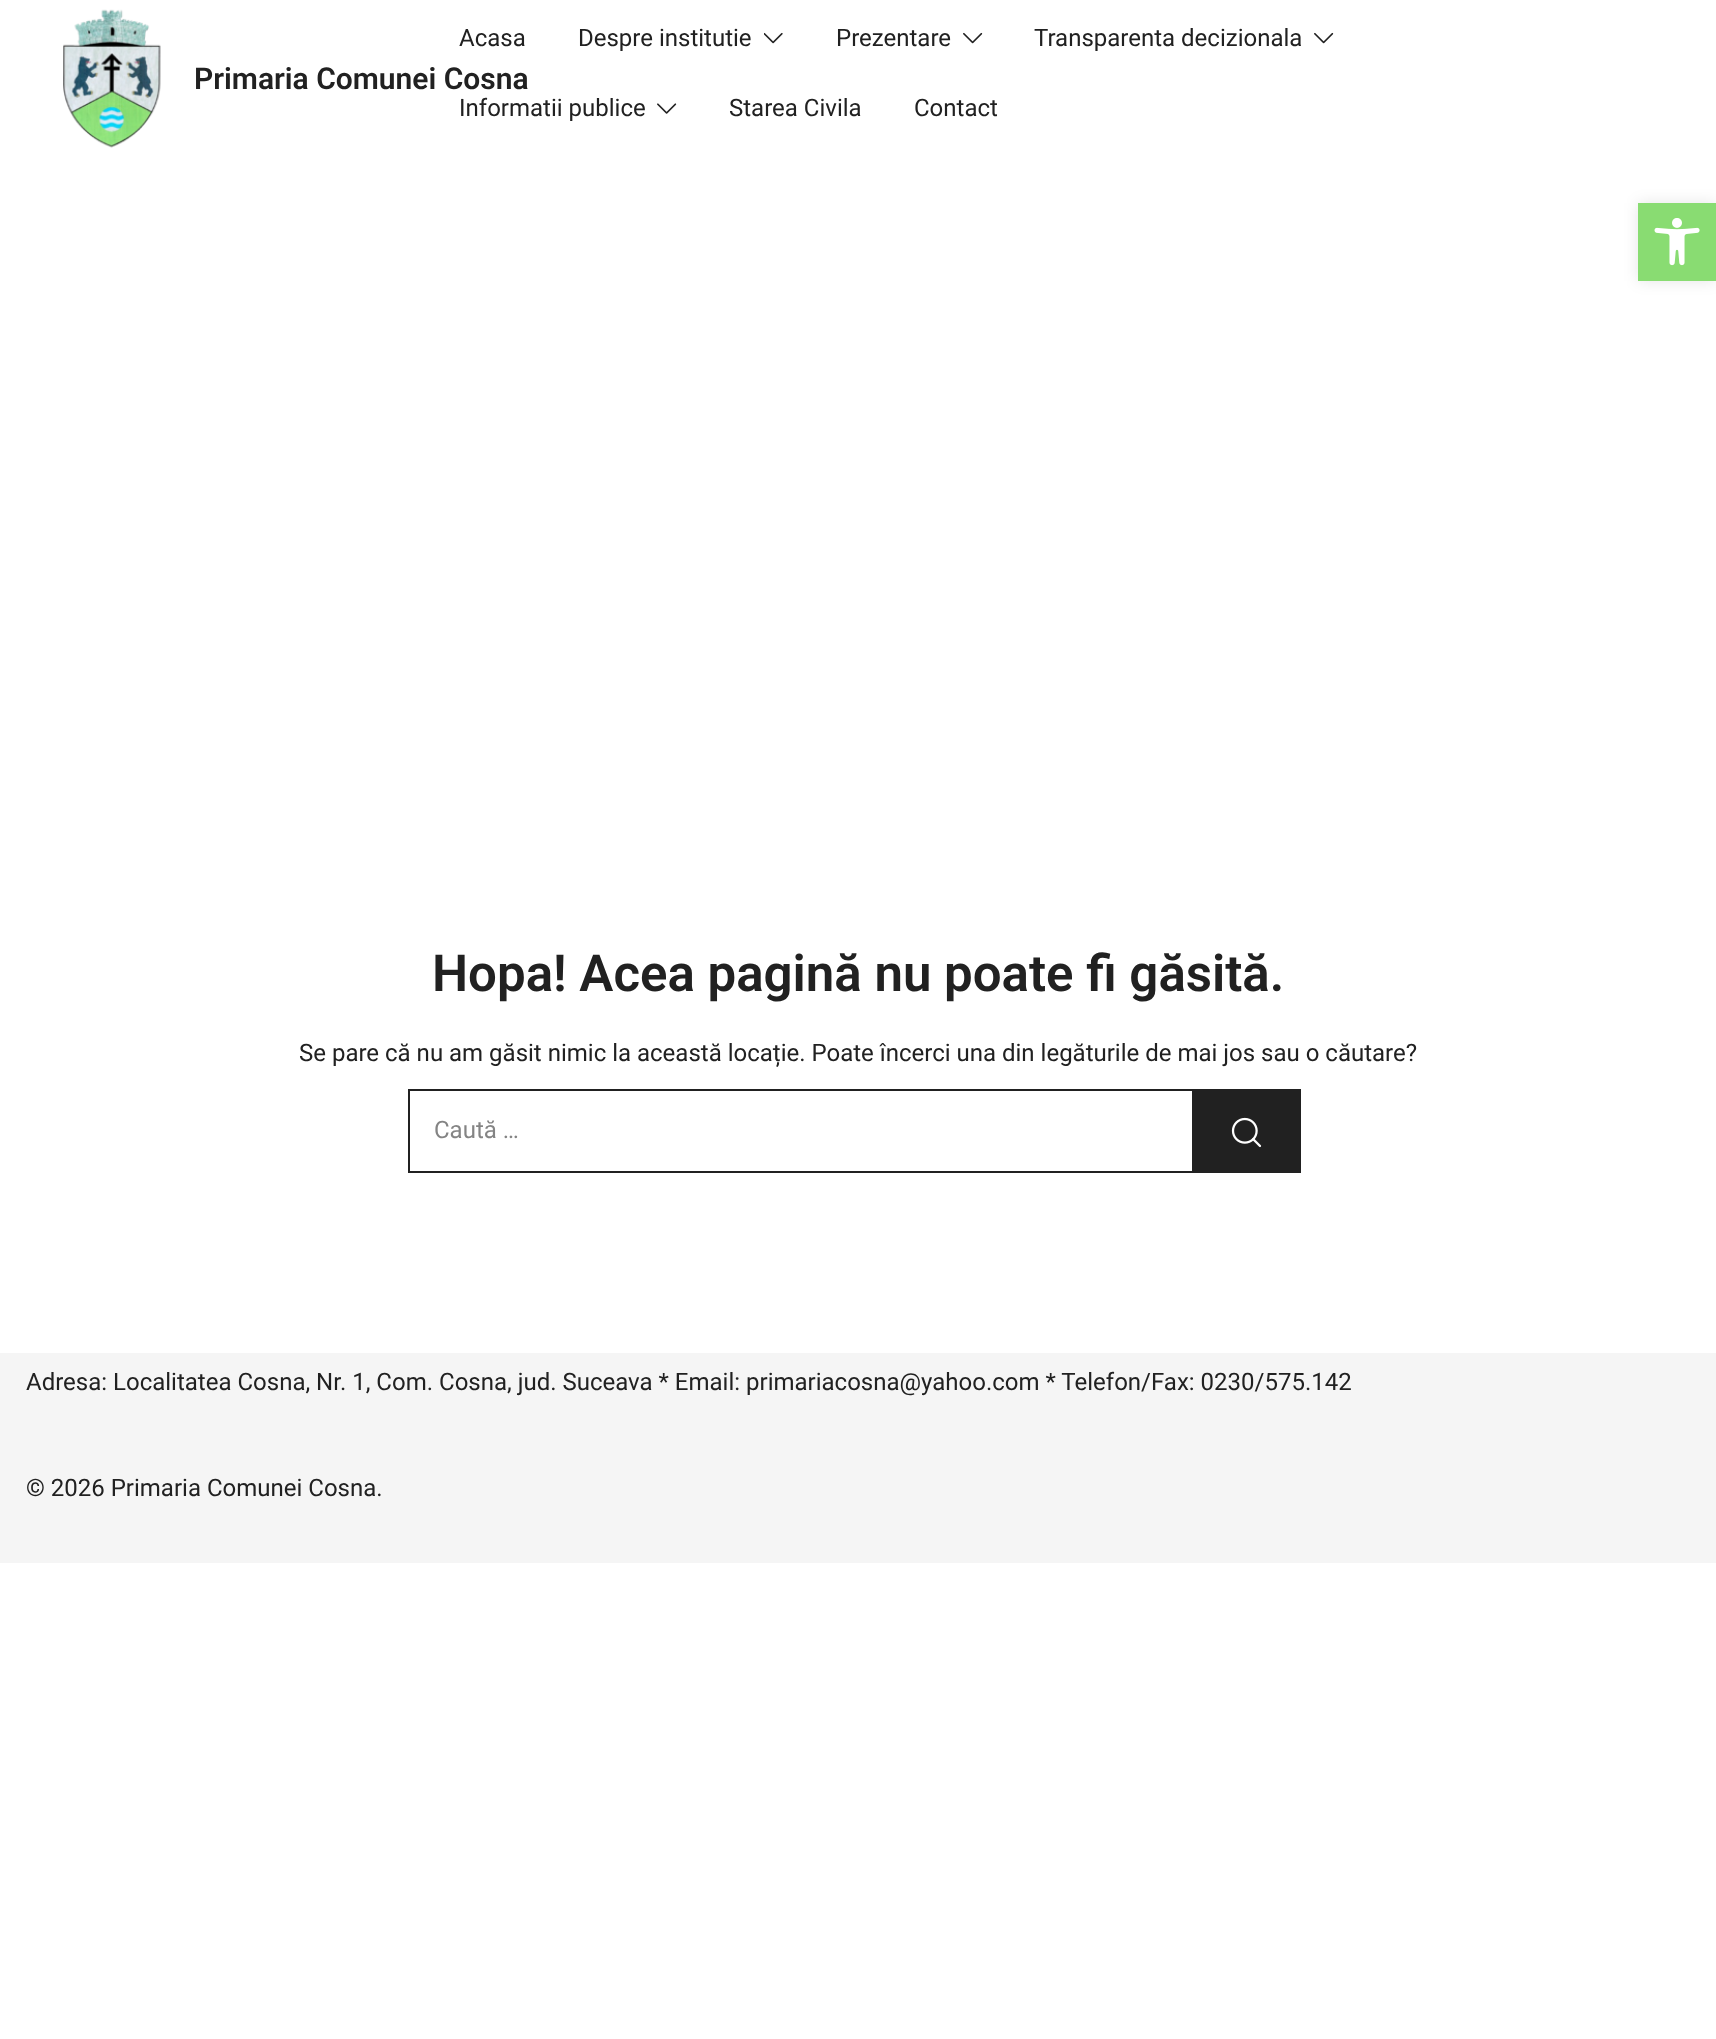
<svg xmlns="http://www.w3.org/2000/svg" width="1716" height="2039">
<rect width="100%" height="100%" fill="#fff"/>
<image x="63" y="9" width="98" height="139" href="media/1.png"/>
<text x="194" y="89" style="font-family:Roboto;font-size:30px;font-weight:600;fill:#212121">Primaria Comunei Cosna</text>
<text x="459" y="46" style="font-family:Roboto;font-size:24px;fill:#212121">Acasa</text>
<text x="578" y="46" style="font-family:Roboto;font-size:24px;fill:#212121">Despre institutie</text>
<image x="764" y="32" width="19" height="12" href="media/2.png"/>
<text x="836" y="46" style="font-family:Roboto;font-size:24px;fill:#212121">Prezentare</text>
<image x="963" y="32" width="20" height="12" href="media/3.png"/>
<text x="1034" y="46" style="font-family:Roboto;font-size:24px;fill:#212121">Transparenta decizionala</text>
<image x="1314" y="32" width="20" height="12" href="media/3.png"/>
<text x="459" y="116" style="font-family:Roboto;font-size:24px;fill:#212121">Informatii publice</text>
<image x="657" y="103" width="20" height="11" href="media/4.png"/>
<text x="729" y="116" style="font-family:Roboto;font-size:24px;fill:#212121">Starea Civila</text>
<text x="914" y="116" style="font-family:Roboto;font-size:24px;fill:#212121">Contact</text>
<text x="432" y="991" style="font-family:Roboto;font-size:51px;font-weight:600;fill:#212121">Hopa! Acea pagină nu poate fi găsită.</text>
<text x="299" y="1061" style="font-family:Roboto;font-size:24px;fill:#212121">Se pare că nu am găsit nimic la această locație. Poate încerci una din legăturile de mai jos sau o căutare?</text>
<rect x="409" y="1090" width="784" height="82" fill="none" stroke="#212121" stroke-width="2"/>
<text x="434" y="1138" style="font-family:Roboto;font-size:24px;fill:#848484">Caută …</text>
<rect x="1194" y="1089" width="107" height="84" fill="#212121"/>
<image x="1231" y="1117" width="31" height="31" href="media/5.png"/>
<rect y="1353" width="1716" height="210" fill="#f5f5f5"/>
<text x="26" y="1390" style="font-family:Roboto;font-size:24px;fill:#212121">Adresa: Localitatea Cosna, Nr. 1, Com. Cosna, jud. Suceava * Email: primariacosna@yahoo.com * Telefon/Fax: 0230/575.142</text>
<text x="26" y="1496" style="font-family:Roboto;font-size:24px;fill:#212121">© 2026 Primaria Comunei Cosna.</text>
<rect x="1638" y="203" width="78" height="78" fill="#0000001a" filter="blur(7.5px)"/>
<rect x="1638" y="203" width="78" height="78" fill="#89dc72"/>
<image x="1654" y="218" width="46" height="48" href="media/6.png"/>
</svg>
